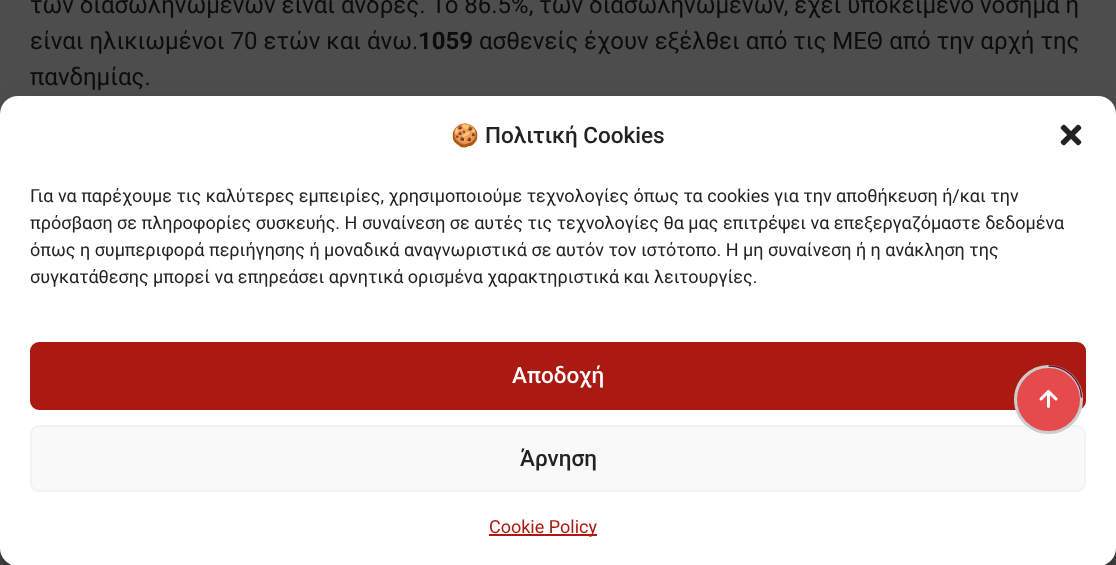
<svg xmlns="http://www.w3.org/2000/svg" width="1116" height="565">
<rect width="100%" height="100%" fill="#4d4d4d"/>
<text x="30" y="13" style="font-family:Roboto;font-size:24px;fill:#0c0c0c">των διασωληνωμένων είναι άνδρες. To 86.5%, των διασωληνωμένων, έχει υποκείμενο νόσημα ή</text>
<text x="30" y="49" style="font-family:Roboto;font-size:24px;fill:#0c0c0c">είναι ηλικιωμένοι 70 ετών και άνω.</text>
<text x="418" y="49" style="font-family:Roboto;font-size:24px;font-weight:bold;fill:#0c0c0c">1059</text>
<text x="479" y="49" style="font-family:Roboto;font-size:24px;fill:#0c0c0c">ασθενείς έχουν εξέλθει από τις ΜΕΘ από την αρχή της</text>
<text x="30" y="85" style="font-family:Roboto;font-size:24px;fill:#0c0c0c">πανδημίας.</text>
<rect y="105" width="1116" height="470" rx="18" fill="#0000003b" filter="blur(4.5px)"/>
<rect y="111" width="1116" height="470" rx="18" fill="#00000030" filter="blur(15px)"/>
<rect y="96" width="1116" height="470" rx="18" fill="#fff"/>
<text x="451" y="143" style="font-family:Noto Color Emoji;font-size:22.5px;fill:#222">🍪</text>
<text x="485" y="143" style="font-family:Roboto;font-size:22.5px;font-weight:500;fill:#222">Πολιτική Cookies</text>
<image x="1060" y="124" width="22" height="22" href="media/1.png"/>
<text x="30" y="202" style="font-family:Roboto;font-size:18px;fill:#222">Για να παρέχουμε τις καλύτερες εμπειρίες, χρησιμοποιούμε τεχνολογίες όπως τα cookies για την αποθήκευση ή/και την</text>
<text x="30" y="229" style="font-family:Roboto;font-size:18px;fill:#222">πρόσβαση σε πληροφορίες συσκευής. Η συναίνεση σε αυτές τις τεχνολογίες θα μας επιτρέψει να επεξεργαζόμαστε δεδομένα</text>
<text x="30" y="256" style="font-family:Roboto;font-size:18px;fill:#222">όπως η συμπεριφορά περιήγησης ή μοναδικά αναγνωριστικά σε αυτόν τον ιστότοπο. Η μη συναίνεση ή η ανάκληση της</text>
<text x="30" y="283" style="font-family:Roboto;font-size:18px;fill:#222">συγκατάθεσης μπορεί να επηρεάσει αρνητικά ορισμένα χαρακτηριστικά και λειτουργίες.</text>
<rect x="31" y="343" width="1054" height="66" rx="8" fill="#ab1a11" stroke="#ab1a11" stroke-width="2"/>
<text x="512" y="383" style="font-family:Roboto;font-size:22.5px;font-weight:500;fill:#fff">Αποδοχή</text>
<rect x="31" y="426" width="1054" height="65" rx="8" fill="#f9f9f9" stroke="#f2f2f2" stroke-width="2"/>
<text x="520" y="466" style="font-family:Roboto;font-size:22.5px;font-weight:500;fill:#222">Άρνηση</text>
<rect x="489" y="534" width="108" height="2" fill="#ab1a11"/>
<text x="489" y="533" style="font-family:Roboto;font-size:18px;fill:#ab1a11">Cookie Policy</text>
<circle cx="1048.5" cy="399.5" r="33" fill="#e54b4d" stroke="#ccc" stroke-width="3"/>
<path d="M1048.5 366c18 0 32.5 14 33 31.5" fill="none" stroke="#6b162d" stroke-width="1.4"/>
<image x="1039" y="390" width="19" height="18" href="media/2.png"/>
</svg>
